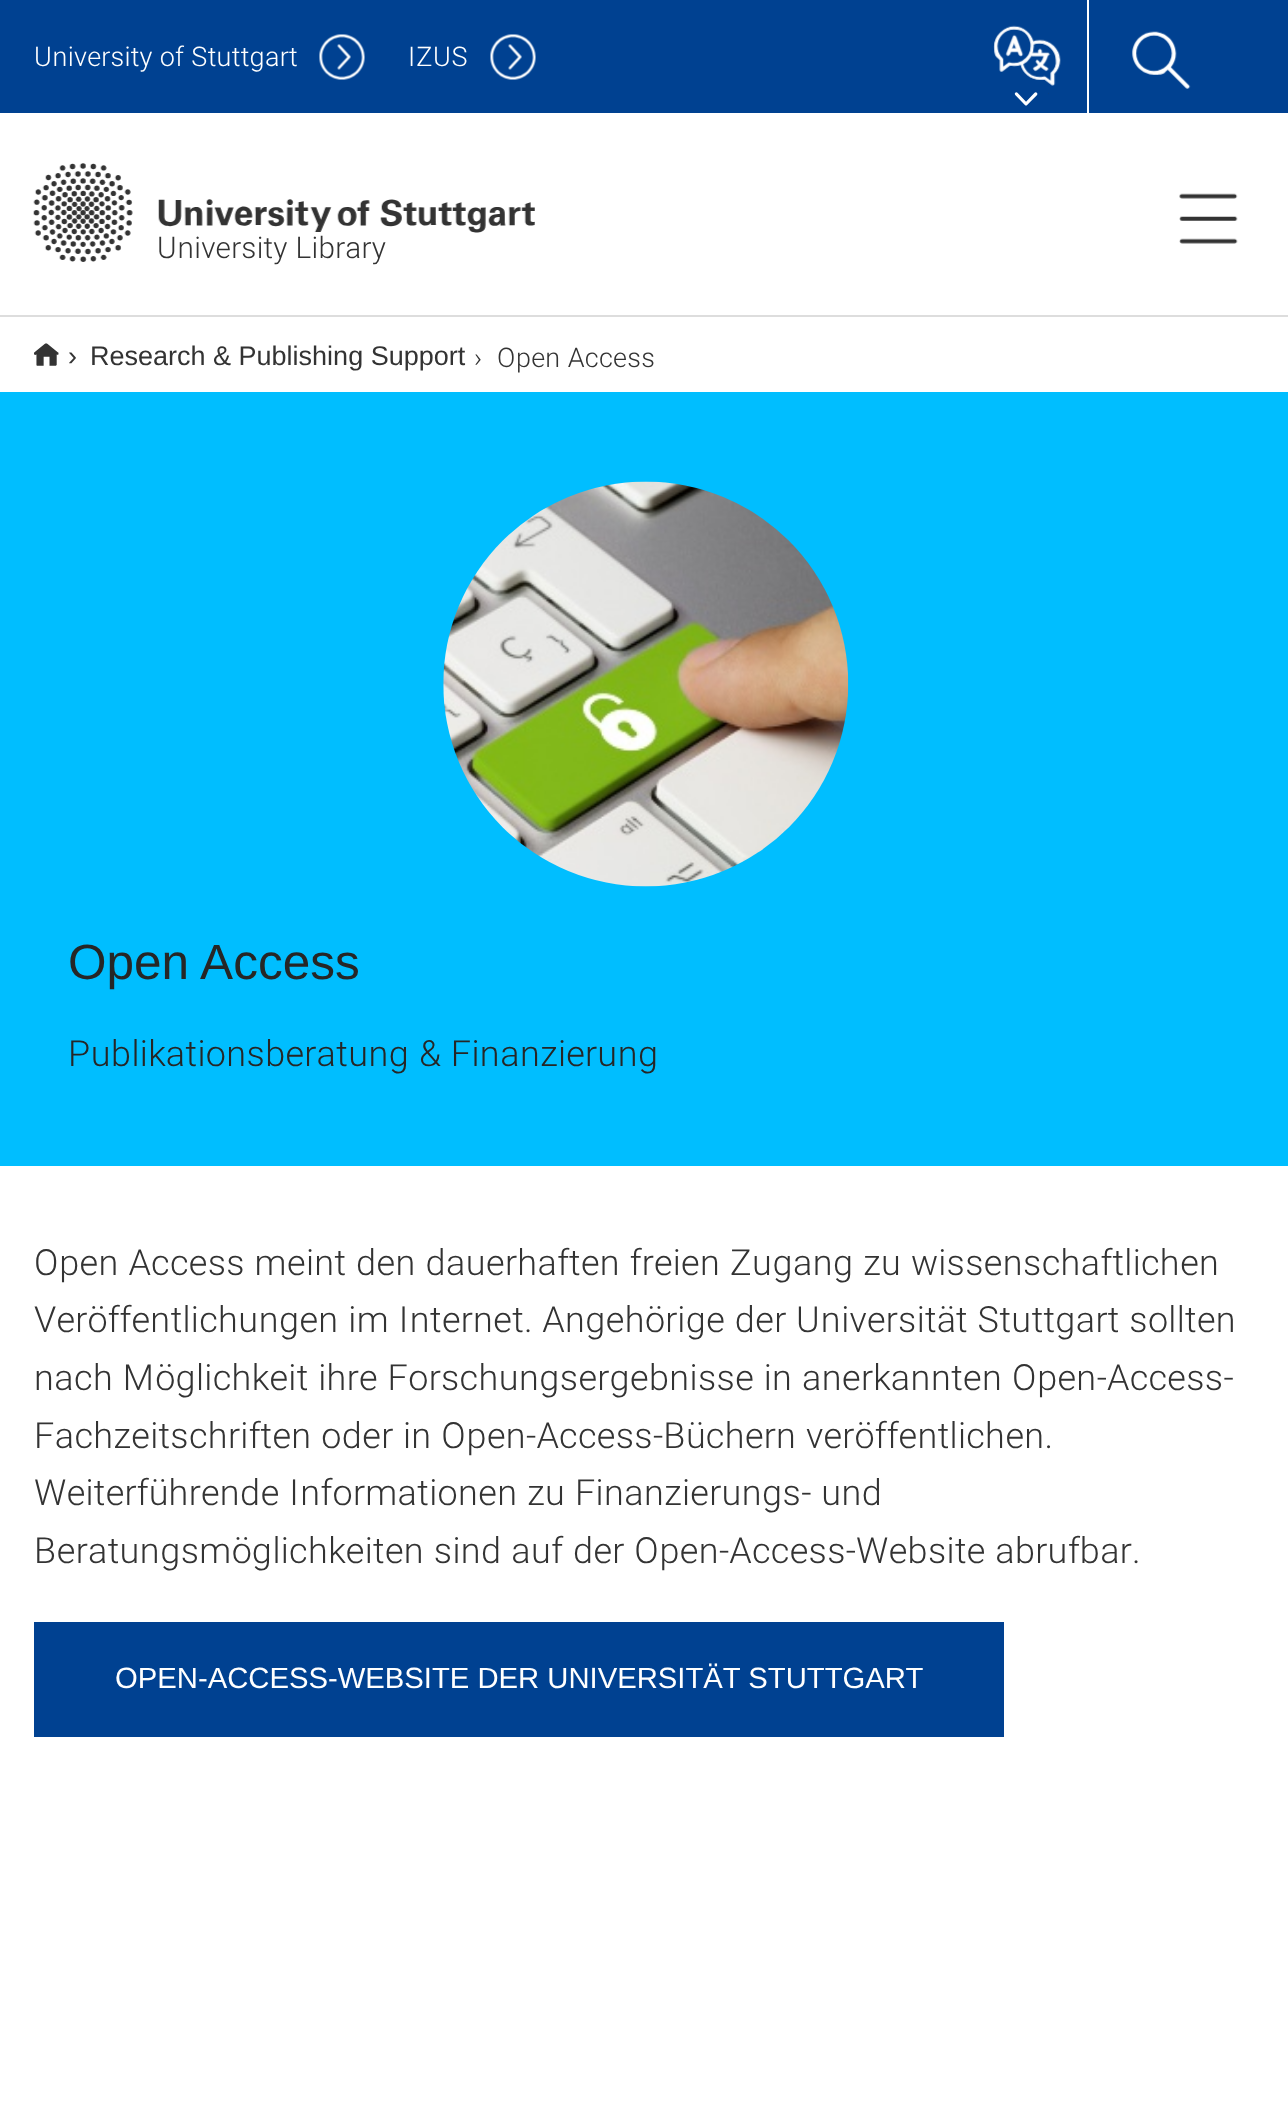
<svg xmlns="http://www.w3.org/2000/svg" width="1288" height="2109">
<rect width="100%" height="100%" fill="#fff"/>
<rect width="1288" height="113" fill="#004191"/>
<text x="34" y="66" style="font-family:Roboto;font-size:27px;font-weight:300;fill:#fff">University of Stuttgart</text>
<image x="319" y="34" width="46" height="46" href="media/1.png"/>
<text x="408" y="66" style="font-family:Roboto;font-size:27px;font-weight:300;fill:#fff">IZUS</text>
<image x="490" y="34" width="46" height="46" href="media/2.png"/>
<image x="993" y="25" width="68" height="61" href="media/3.png"/>
<image x="1014" y="92" width="35" height="14" href="media/4.png"/>
<rect x="1087" width="2" height="113" fill="#fff"/>
<image x="1132" y="31" width="59" height="58" href="media/5.png"/>
<image x="1179" y="193" width="59" height="51" href="media/6.png"/>
<image x="33" y="163" width="502" height="99" href="media/7.png"/>
<text x="157" y="258" style="font-family:Roboto;font-size:29.75px;font-weight:300;fill:#333">University Library</text>
<rect y="315" width="1288" height="2" fill="#ddd"/>
<image x="34" y="343" width="25" height="23" href="media/8.png"/>
<text x="68" y="365" style="font-family:Liberation Sans;font-size:27px;fill:#333">›</text>
<text x="90" y="365" style="font-family:Liberation Sans;font-size:27px;fill:#333">Research &amp; Publishing Support</text>
<text x="474" y="367" style="font-family:Roboto;font-size:27px;font-weight:300;fill:#333">›</text>
<text x="497" y="367" style="font-family:Roboto;font-size:27px;font-weight:300;fill:#333">Open Access</text>
<rect y="392" width="1288" height="774" fill="#00beff"/>
<image x="443" y="481" width="406" height="406" href="media/9.png"/>
<text x="68" y="979" style="font-family:Liberation Sans;font-size:49.5px;fill:#262626">Open Access</text>
<text x="68" y="1066" style="font-family:Roboto;font-size:36px;font-weight:300;fill:#262626">Publikationsberatung &amp; Finanzierung</text>
<text x="34" y="1275" style="font-family:Roboto;font-size:36px;font-weight:300;fill:#333">Open Access meint den dauerhaften freien Zugang zu wissenschaftlichen</text>
<text x="34" y="1332" style="font-family:Roboto;font-size:36px;font-weight:300;fill:#333">Veröffentlichungen im Internet. Angehörige der Universität Stuttgart sollten</text>
<text x="34" y="1390" style="font-family:Roboto;font-size:36px;font-weight:300;fill:#333">nach Möglichkeit ihre Forschungsergebnisse in anerkannten Open-Access-</text>
<text x="34" y="1448" style="font-family:Roboto;font-size:36px;font-weight:300;fill:#333">Fachzeitschriften oder in Open-Access-Büchern veröffentlichen.</text>
<text x="34" y="1505" style="font-family:Roboto;font-size:36px;font-weight:300;fill:#333">Weiterführende Informationen zu Finanzierungs- und</text>
<text x="34" y="1563" style="font-family:Roboto;font-size:36px;font-weight:300;fill:#333">Beratungsmöglichkeiten sind auf der Open-Access-Website abrufbar.</text>
<rect x="34" y="1622" width="970" height="115" fill="#004191"/>
<text x="115" y="1688" style="font-family:Liberation Sans;font-size:29.25px;fill:#fff">OPEN-ACCESS-WEBSITE DER UNIVERSITÄT STUTTGART</text>
</svg>
